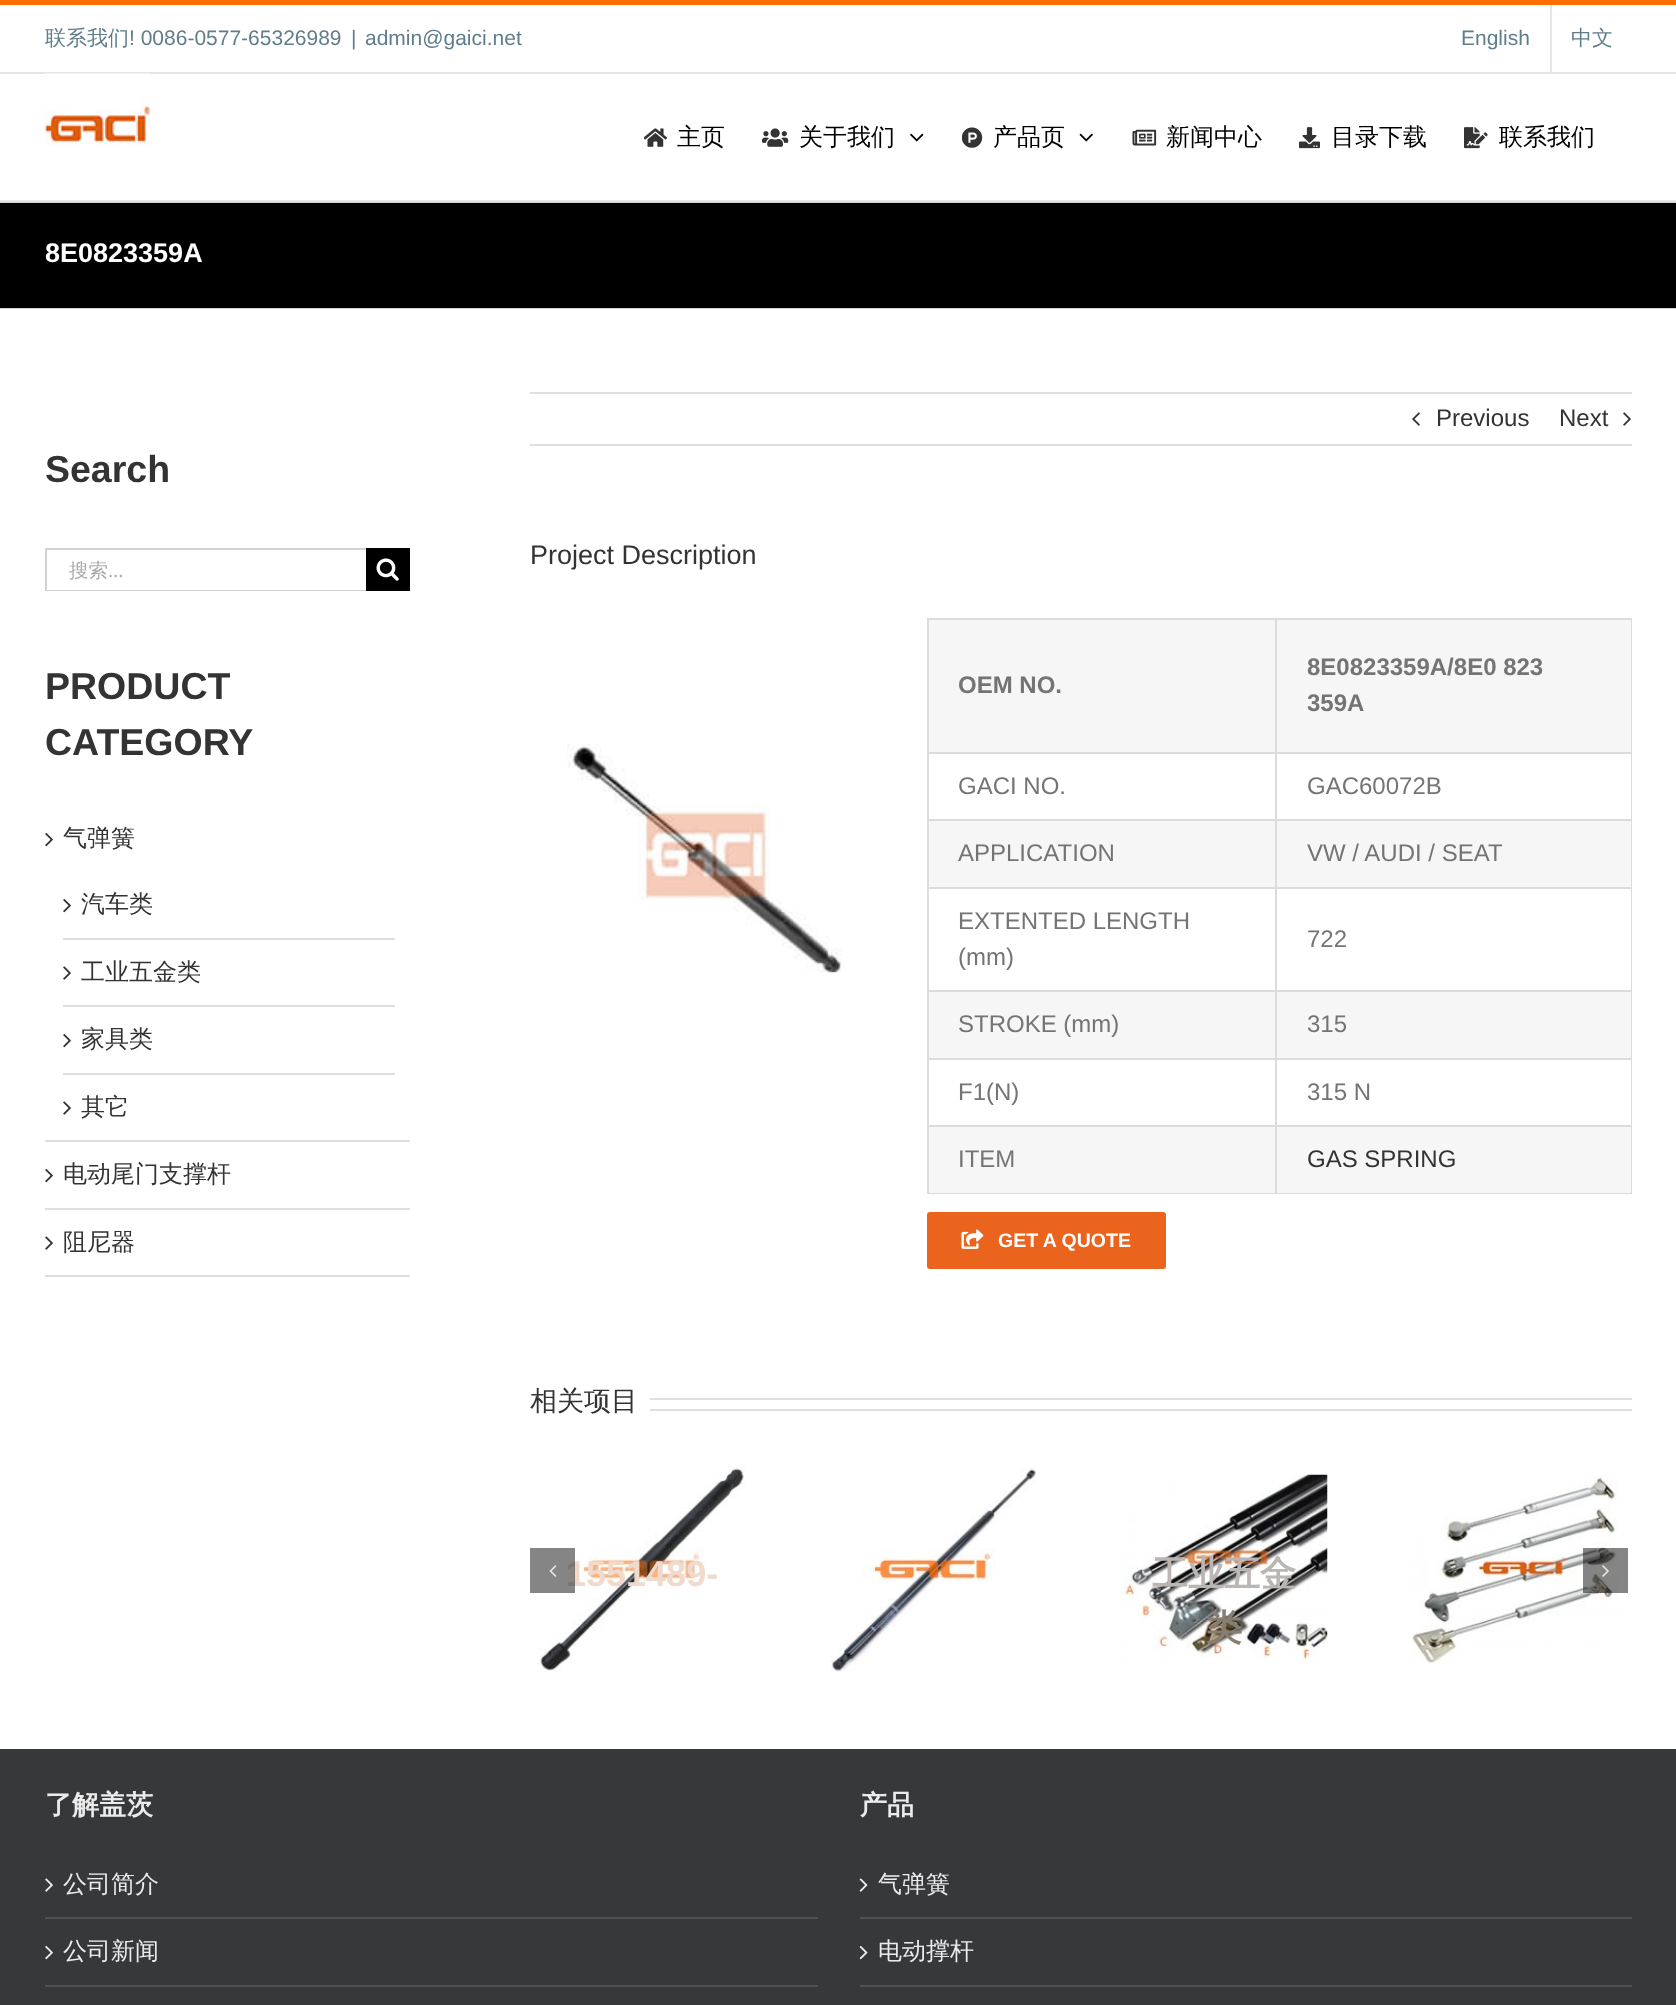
<svg xmlns="http://www.w3.org/2000/svg" width="1676" height="2005">
<rect width="100%" height="100%" fill="#fff"/>
<rect width="1676" height="5" fill="#ff6e00"/>
<rect y="72" width="1676" height="2" fill="#e5e5e5"/>
<text x="45" y="45" style="font-family:WenQuanYi Zen Hei;font-size:21px;font-weight:500;fill:#607d8b">联系我们</text>
<text x="129" y="45" style="font-family:Liberation Sans;font-size:21px;fill:#607d8b">! 0086-0577-65326989</text>
<text x="351" y="45" style="font-family:Liberation Sans;font-size:21px;fill:#607d8b">|</text>
<text x="365" y="45" style="font-family:Liberation Sans;font-size:21px;fill:#607d8b">admin@gaici.net</text>
<text x="1461" y="45" style="font-family:Liberation Sans;font-size:21px;fill:#607d8b">English</text>
<rect x="1550" y="5" width="2" height="67" fill="#e5e5e5"/>
<text x="1571" y="45" style="font-family:WenQuanYi Zen Hei;font-size:21px;font-weight:500;fill:#607d8b">中文</text>
<rect y="200" width="1676" height="2" fill="#e5e5e5"/>
<image x="45" y="73" width="105" height="73" href="media/1.png"/>
<image x="644" y="128" width="24" height="19" href="media/2.png"/>
<text x="677" y="145" style="font-family:WenQuanYi Zen Hei;font-size:24px;font-weight:500;fill:#000">主页</text>
<image x="762" y="128" width="27" height="19" href="media/3.png"/>
<text x="799" y="145" style="font-family:WenQuanYi Zen Hei;font-size:24px;font-weight:500;fill:#000">关于我们</text>
<image x="910" y="133" width="14" height="9" href="media/4.png"/>
<image x="962" y="127" width="21" height="21" href="media/5.png"/>
<text x="993" y="145" style="font-family:WenQuanYi Zen Hei;font-size:24px;font-weight:500;fill:#000">产品页</text>
<image x="1079" y="133" width="14" height="9" href="media/6.png"/>
<image x="1132" y="129" width="25" height="17" href="media/7.png"/>
<text x="1166" y="145" style="font-family:WenQuanYi Zen Hei;font-size:24px;font-weight:500;fill:#000">新闻中心</text>
<image x="1299" y="127" width="21" height="22" href="media/8.png"/>
<text x="1331" y="145" style="font-family:WenQuanYi Zen Hei;font-size:24px;font-weight:500;fill:#000">目录下载</text>
<image x="1464" y="127" width="24" height="22" href="media/9.png"/>
<text x="1499" y="145" style="font-family:WenQuanYi Zen Hei;font-size:24px;font-weight:500;fill:#000">联系我们</text>
<rect y="203" width="1676" height="105" fill="#000"/>
<rect y="202" width="1676" height="1" fill="#d2d3d4"/>
<rect y="308" width="1676" height="1" fill="#d2d3d4"/>
<text x="45" y="262" style="font-family:Liberation Sans;font-size:27px;font-weight:bold;fill:#fff">8E0823359A</text>
<text x="45" y="482" style="font-family:Liberation Sans;font-size:37.5px;font-weight:bold;fill:#333">Search</text>
<rect x="45" y="548" width="321" height="2" fill="#d2d2d2"/>
<rect x="45" y="590" width="321" height="1" fill="#d2d2d2"/>
<rect x="45" y="548" width="2" height="43" fill="#d2d2d2"/>
<text x="69" y="577" style="font-family:WenQuanYi Zen Hei;font-size:19.5px;font-weight:500;fill:#aaa9a9">搜索</text>
<text x="108" y="577" style="font-family:Open Sans;font-size:19.5px;fill:#aaa9a9">...</text>
<rect x="366" y="548" width="44" height="43" fill="#000"/>
<image x="376" y="558" width="23" height="23" href="media/10.png"/>
<text x="45" y="699" style="font-family:Liberation Sans;font-size:37.5px;font-weight:bold;fill:#333">PRODUCT</text>
<text x="45" y="755" style="font-family:Liberation Sans;font-size:37.5px;font-weight:bold;fill:#333">CATEGORY</text>
<rect x="45" y="1140" width="365" height="2" fill="#e0dede"/>
<image x="45" y="832" width="8" height="15" href="media/11.png"/>
<text x="63" y="846" style="font-family:WenQuanYi Zen Hei;font-size:24px;font-weight:500;fill:#333">气弹簧</text>
<rect x="63" y="938" width="332" height="2" fill="#e0dede"/>
<image x="63" y="898" width="8" height="15" href="media/11.png"/>
<text x="81" y="912" style="font-family:WenQuanYi Zen Hei;font-size:24px;font-weight:500;fill:#333">汽车类</text>
<rect x="63" y="1005" width="332" height="2" fill="#e0dede"/>
<image x="63" y="966" width="8" height="14" href="media/12.png"/>
<text x="81" y="980" style="font-family:WenQuanYi Zen Hei;font-size:24px;font-weight:500;fill:#333">工业五金类</text>
<rect x="63" y="1073" width="332" height="2" fill="#e0dede"/>
<image x="63" y="1033" width="8" height="15" href="media/11.png"/>
<text x="81" y="1047" style="font-family:WenQuanYi Zen Hei;font-size:24px;font-weight:500;fill:#333">家具类</text>
<image x="63" y="1101" width="8" height="14" href="media/12.png"/>
<text x="81" y="1115" style="font-family:WenQuanYi Zen Hei;font-size:24px;font-weight:500;fill:#333">其它</text>
<rect x="45" y="1208" width="365" height="2" fill="#e0dede"/>
<image x="45" y="1168" width="8" height="15" href="media/11.png"/>
<text x="63" y="1182" style="font-family:WenQuanYi Zen Hei;font-size:24px;font-weight:500;fill:#333">电动尾门支撑杆</text>
<rect x="45" y="1275" width="365" height="2" fill="#e0dede"/>
<image x="45" y="1236" width="8" height="14" href="media/12.png"/>
<text x="63" y="1250" style="font-family:WenQuanYi Zen Hei;font-size:24px;font-weight:500;fill:#333">阻尼器</text>
<rect x="530" y="392" width="1102" height="2" fill="#e0dede"/>
<rect x="530" y="444" width="1102" height="2" fill="#e0dede"/>
<image x="1412" y="412" width="8" height="14" href="media/13.png"/>
<text x="1436" y="426" style="font-family:Liberation Sans;font-size:24px;fill:#333">Previous</text>
<text x="1559" y="426" style="font-family:Liberation Sans;font-size:24px;fill:#333">Next</text>
<image x="1623" y="412" width="8" height="14" href="media/14.png"/>
<text x="530" y="564" style="font-family:Liberation Sans;font-size:27px;fill:#333">Project Description</text>
<image x="567" y="744" width="275" height="229" href="media/15.png"/>
<rect x="927" y="618" width="705" height="2" fill="#dcdcdc"/>
<rect x="1631" y="618" width="1" height="576" fill="#dcdcdc"/>
<rect x="927" y="1193" width="705" height="1" fill="#dcdcdc"/>
<rect x="927" y="618" width="2" height="576" fill="#dcdcdc"/>
<rect x="929" y="620" width="346" height="132" fill="#f6f6f6"/>
<text x="958" y="693" style="font-family:Liberation Sans;font-size:24px;font-weight:bold;fill:#747474">OEM NO.</text>
<rect x="1277" y="620" width="354" height="132" fill="#f6f6f6"/>
<rect x="1275" y="752" width="357" height="2" fill="#dcdcdc"/>
<rect x="1275" y="819" width="357" height="2" fill="#dcdcdc"/>
<rect x="929" y="821" width="702" height="66" fill="#f6f6f6"/>
<rect x="1275" y="887" width="357" height="2" fill="#dcdcdc"/>
<rect x="1275" y="990" width="357" height="2" fill="#dcdcdc"/>
<rect x="929" y="992" width="702" height="66" fill="#f6f6f6"/>
<rect x="1275" y="1058" width="357" height="2" fill="#dcdcdc"/>
<rect x="1275" y="1125" width="357" height="2" fill="#dcdcdc"/>
<rect x="929" y="1127" width="702" height="66" fill="#f6f6f6"/>
<rect x="1275" y="1125" width="2" height="69" fill="#dcdcdc"/>
<rect x="927" y="1125" width="350" height="2" fill="#dcdcdc"/>
<rect x="1275" y="1058" width="2" height="69" fill="#dcdcdc"/>
<rect x="927" y="1058" width="350" height="2" fill="#dcdcdc"/>
<rect x="1275" y="990" width="2" height="69" fill="#dcdcdc"/>
<rect x="927" y="990" width="350" height="2" fill="#dcdcdc"/>
<rect x="1275" y="887" width="2" height="105" fill="#dcdcdc"/>
<rect x="927" y="887" width="350" height="2" fill="#dcdcdc"/>
<rect x="1275" y="819" width="2" height="69" fill="#dcdcdc"/>
<rect x="927" y="819" width="350" height="2" fill="#dcdcdc"/>
<rect x="1275" y="752" width="2" height="69" fill="#dcdcdc"/>
<rect x="927" y="752" width="350" height="2" fill="#dcdcdc"/>
<rect x="1275" y="618" width="2" height="135" fill="#dcdcdc"/>
<text x="1307" y="675" style="font-family:Liberation Sans;font-size:24px;font-weight:bold;fill:#747474">8E0823359A/8E0 823</text>
<text x="1307" y="711" style="font-family:Liberation Sans;font-size:24px;font-weight:bold;fill:#747474">359A</text>
<text x="958" y="794" style="font-family:Liberation Sans;font-size:24px;fill:#747474">GACI NO.</text>
<text x="1307" y="794" style="font-family:Liberation Sans;font-size:24px;fill:#747474">GAC60072B</text>
<text x="958" y="861" style="font-family:Liberation Sans;font-size:24px;fill:#747474">APPLICATION</text>
<text x="1307" y="861" style="font-family:Liberation Sans;font-size:24px;fill:#747474">VW / AUDI / SEAT</text>
<text x="958" y="929" style="font-family:Liberation Sans;font-size:24px;fill:#747474">EXTENTED LENGTH</text>
<text x="958" y="965" style="font-family:Liberation Sans;font-size:24px;fill:#747474">(mm)</text>
<text x="1307" y="947" style="font-family:Liberation Sans;font-size:24px;fill:#747474">722</text>
<text x="958" y="1032" style="font-family:Liberation Sans;font-size:24px;fill:#747474">STROKE (mm)</text>
<text x="1307" y="1032" style="font-family:Liberation Sans;font-size:24px;fill:#747474">315</text>
<text x="958" y="1100" style="font-family:Liberation Sans;font-size:24px;fill:#747474">F1(N)</text>
<text x="1307" y="1100" style="font-family:Liberation Sans;font-size:24px;fill:#747474">315 N</text>
<text x="958" y="1167" style="font-family:Liberation Sans;font-size:24px;fill:#747474">ITEM</text>
<text x="1307" y="1167" style="font-family:Liberation Sans;font-size:24px;fill:#333">GAS SPRING</text>
<rect x="927" y="1212" width="239" height="57" rx="3" fill="#eb641d"/>
<image x="961" y="1229" width="23" height="20" href="media/16.png"/>
<text x="998" y="1247" style="font-family:Liberation Sans;font-size:19.5px;font-weight:bold;fill:#fff">GET A QUOTE</text>
<text x="530" y="1410" style="font-family:WenQuanYi Zen Hei;font-size:27px;font-weight:500;fill:#333">相关项目</text>
<rect x="650" y="1398" width="982" height="2" fill="#e0dede"/>
<rect x="650" y="1409" width="982" height="2" fill="#e0dede"/>
<image x="539" y="1466" width="206" height="206" href="media/19.png"/>
<text x="566" y="1586" style="font-family:Liberation Sans;font-size:36px;font-weight:bold;fill:#efdacb">1551489-</text>
<rect x="530" y="1548" width="45" height="45" fill="#0000007a"/>
<image x="549" y="1565" width="8" height="12" href="media/17.png"/>
<image x="1412" y="1475" width="206" height="188" href="media/22.png"/>
<rect x="1583" y="1548" width="45" height="45" fill="#0000007a"/>
<image x="1602" y="1565" width="7" height="12" href="media/18.png"/>
<image x="830" y="1467" width="206" height="205" href="media/20.png"/>
<image x="1121" y="1474" width="207" height="189" href="media/21.png"/>
<text x="1152" y="1586" style="font-family:WenQuanYi Zen Hei;font-size:36px;font-weight:bold;fill:#bbb6b3">工业五金</text>
<text x="1206" y="1640" style="font-family:WenQuanYi Zen Hei;font-size:36px;font-weight:bold;fill:#877e72">类</text>
<rect y="1749" width="1676" height="256" fill="#363839"/>
<text x="45" y="1814" style="font-family:WenQuanYi Zen Hei;font-size:27px;font-weight:bold;fill:#ebebeb">了解盖茨</text>
<rect x="45" y="1917" width="773" height="2" fill="#505152"/>
<image x="45" y="1878" width="8" height="14" href="media/23.png"/>
<text x="63" y="1892" style="font-family:WenQuanYi Zen Hei;font-size:24px;font-weight:500;fill:#ebebeb">公司简介</text>
<rect x="45" y="1985" width="773" height="2" fill="#505152"/>
<image x="45" y="1945" width="8" height="15" href="media/24.png"/>
<text x="63" y="1959" style="font-family:WenQuanYi Zen Hei;font-size:24px;font-weight:500;fill:#ebebeb">公司新闻</text>
<text x="860" y="1814" style="font-family:WenQuanYi Zen Hei;font-size:27px;font-weight:bold;fill:#ebebeb">产品</text>
<rect x="860" y="1917" width="772" height="2" fill="#505152"/>
<image x="859" y="1878" width="9" height="14" href="media/25.png"/>
<text x="878" y="1892" style="font-family:WenQuanYi Zen Hei;font-size:24px;font-weight:500;fill:#ebebeb">气弹簧</text>
<rect x="860" y="1985" width="772" height="2" fill="#505152"/>
<image x="859" y="1945" width="9" height="15" href="media/26.png"/>
<text x="878" y="1959" style="font-family:WenQuanYi Zen Hei;font-size:24px;font-weight:500;fill:#ebebeb">电动撑杆</text>
</svg>
